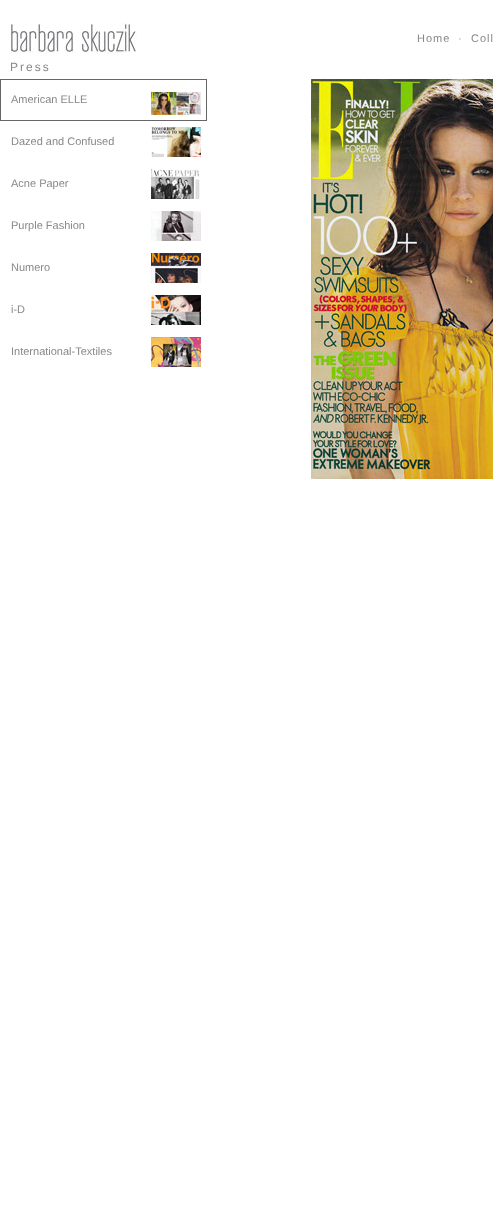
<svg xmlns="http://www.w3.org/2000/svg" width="493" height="1219">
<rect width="100%" height="100%" fill="#fff"/>
<image x="10" y="23" width="127" height="30" href="media/1.png"/>
<text x="417" y="42" style="font-family:Liberation Sans;font-size:11px;letter-spacing:1px;fill:#888">Home</text>
<text x="458" y="42" style="font-family:Liberation Sans;font-size:11px;letter-spacing:1px;fill:#888">·</text>
<text x="471" y="42" style="font-family:Liberation Sans;font-size:11px;letter-spacing:1px;fill:#888">Coll</text>
<text x="10" y="71" style="font-family:Liberation Sans;font-size:12px;letter-spacing:2px;fill:#888">Press</text>
<rect x="0.5" y="79.5" width="206" height="41" fill="none" stroke="#666"/>
<text x="11" y="103" style="font-family:Liberation Sans;font-size:11px;fill:#888">American ELLE</text>
<image x="151" y="85" width="50" height="30" href="media/2.png"/>
<text x="11" y="145" style="font-family:Liberation Sans;font-size:11px;fill:#888">Dazed and Confused</text>
<image x="151" y="127" width="50" height="30" href="media/3.png"/>
<text x="11" y="187" style="font-family:Liberation Sans;font-size:11px;fill:#888">Acne Paper</text>
<image x="151" y="169" width="49" height="30" href="media/4.png"/>
<text x="11" y="229" style="font-family:Liberation Sans;font-size:11px;fill:#888">Purple Fashion</text>
<image x="151" y="211" width="50" height="30" href="media/5.png"/>
<text x="11" y="271" style="font-family:Liberation Sans;font-size:11px;fill:#888">Numero</text>
<image x="151" y="253" width="50" height="30" href="media/6.png"/>
<text x="11" y="313" style="font-family:Liberation Sans;font-size:11px;fill:#888">i-D</text>
<image x="151" y="295" width="50" height="30" href="media/7.png"/>
<text x="11" y="355" style="font-family:Liberation Sans;font-size:11px;fill:#888">International-Textiles</text>
<image x="151" y="337" width="50" height="30" href="media/8.png"/>
<image x="311" y="79" width="182" height="400" href="media/9.png"/>
</svg>
